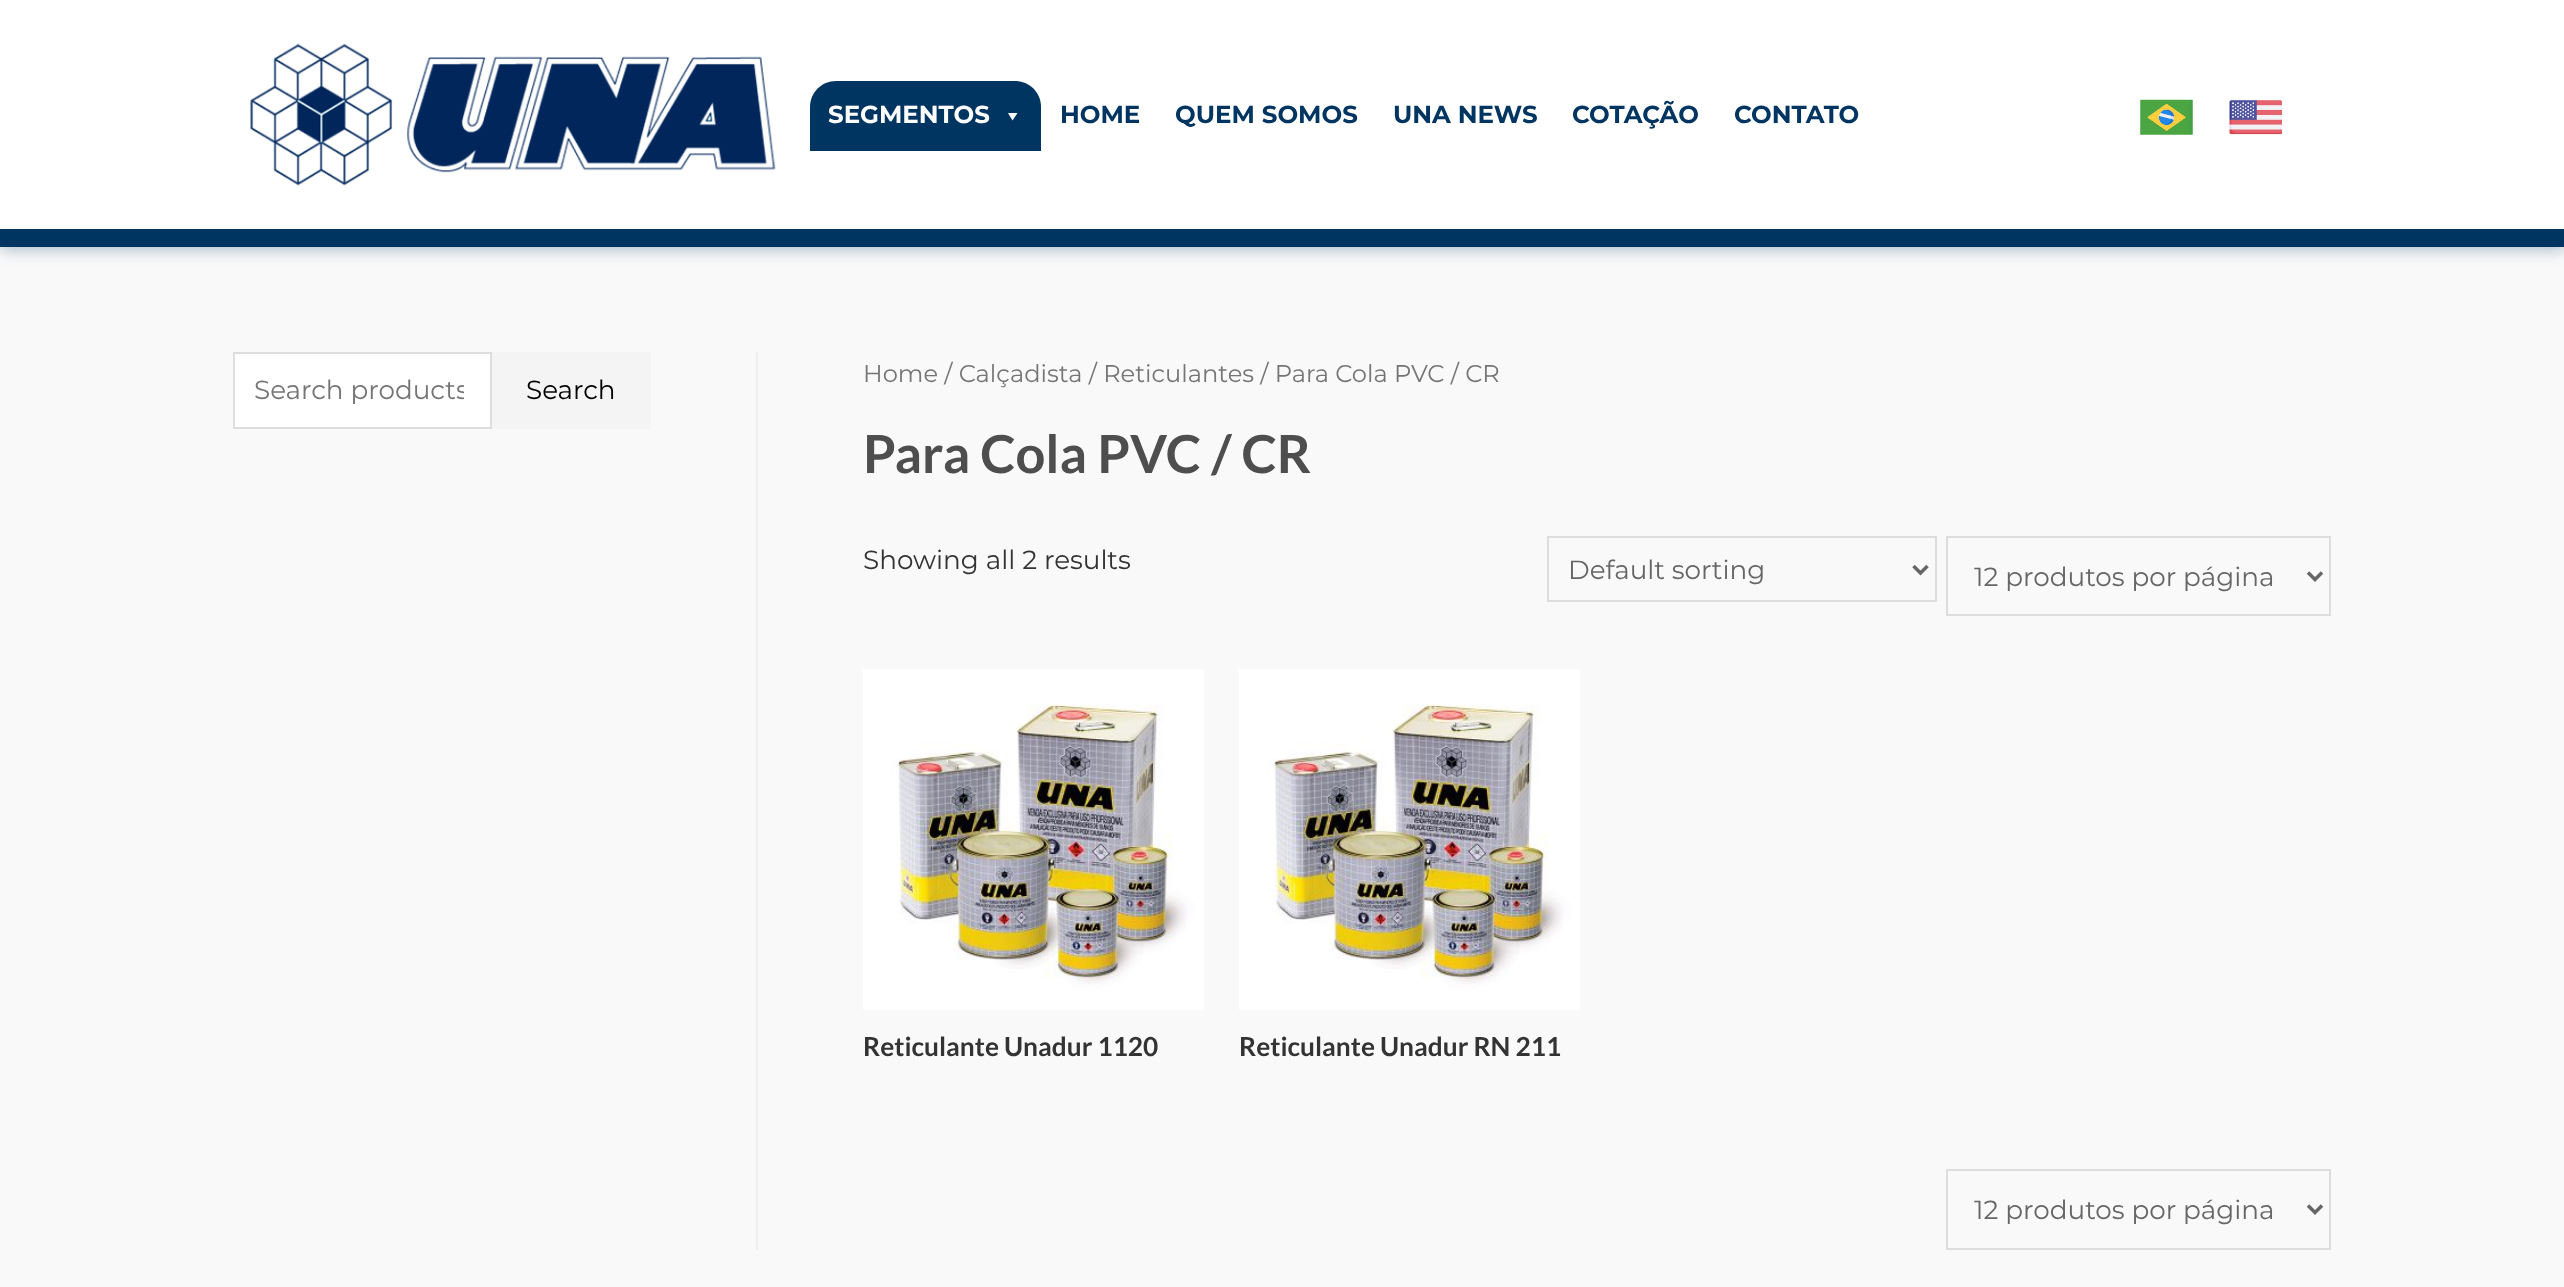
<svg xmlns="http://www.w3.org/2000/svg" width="2564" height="1287">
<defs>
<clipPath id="clip1"><rect x="254" y="373" width="210" height="33"/></clipPath>
<clipPath id="clip2"><rect x="1974" y="558" width="308" height="37"/></clipPath>
<clipPath id="clip3"><rect x="1974" y="1190" width="308" height="37"/></clipPath>
</defs>
<rect width="100%" height="100%" fill="#f9f9f9"/>
<rect width="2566" height="247" fill="#0035616b" filter="blur(9px)"/>
<rect width="2564" height="229" fill="#fff"/>
<rect y="229" width="2564" height="18" fill="#003561"/>
<image x="250" y="43" width="526" height="143" href="media/1.png"/>
<path d="M836 81h179c14.5 0 26 11.5 26 26v44h-231v-44c0-14.5 11.5-26 26-26z" fill="#003561"/>
<text x="828" y="123" style="font-family:Montserrat;font-size:24.5px;font-weight:bold;fill:#fff">SEGMENTOS</text>
<path d="M1017.5 113l-5 7.5l-4.5-7.5z" fill="#fff"/>
<text x="1060" y="123" style="font-family:Montserrat;font-size:24.5px;font-weight:bold;fill:#003561">HOME</text>
<text x="1175" y="123" style="font-family:Montserrat;font-size:24.5px;font-weight:bold;fill:#003561">QUEM SOMOS</text>
<text x="1393" y="123" style="font-family:Montserrat;font-size:24.5px;font-weight:bold;fill:#003561">UNA NEWS</text>
<text x="1572" y="123" style="font-family:Montserrat;font-size:24.5px;font-weight:bold;fill:#003561">COTAÇÃO</text>
<text x="1734" y="123" style="font-family:Montserrat;font-size:24.5px;font-weight:bold;fill:#003561">CONTATO</text>
<image x="2140" y="99" width="53" height="36" href="media/2.png"/>
<image x="2229" y="100" width="53" height="35" href="media/3.png"/>
<rect x="234" y="353" width="257" height="75" fill="#fff" stroke="#ddd" stroke-width="2"/>
<g clip-path="url(#clip1)">
<text x="254" y="399" style="font-family:Montserrat;font-size:26.25px;fill:#757575">Search products</text>
</g>
<rect x="492" y="352" width="159" height="77" fill="#f4f4f4"/>
<text x="526" y="399" style="font-family:Montserrat;font-size:26.25px;fill:#000">Search</text>
<rect x="756" y="352" width="2" height="898" fill="#eee"/>
<text x="863" y="382" style="font-family:Montserrat;font-size:24.15px;fill:#757575">Home / Calçadista / Reticulantes / Para Cola PVC / CR</text>
<text x="863" y="473" style="font-family:Lato;font-size:52.5px;font-weight:bold;fill:#4e4e4e">Para Cola PVC / CR</text>
<text x="863" y="569" style="font-family:Montserrat;font-size:26.25px;fill:#333">Showing all 2 results</text>
<rect x="1548" y="537" width="388" height="64" fill="none" stroke="#ddd" stroke-width="2"/>
<path d="M1913.5 566l7 7l7-7" fill="none" stroke="#666" stroke-width="3.5"/>
<text x="1568" y="579" style="font-family:Montserrat;font-size:26.25px;fill:#666">Default sorting</text>
<rect x="1947" y="537" width="383" height="78" fill="none" stroke="#ddd" stroke-width="2"/>
<path d="M2308 572.5l7 7l7-7" fill="none" stroke="#666" stroke-width="3.5"/>
<g clip-path="url(#clip2)">
<text x="1974" y="586" style="font-family:Montserrat;font-size:26.25px;fill:#666">12 produtos por página</text>
</g>
<image x="863" y="669" width="341" height="341" href="media/4.png"/>
<text x="863" y="1056" style="font-family:Lato;font-size:26.25px;font-weight:bold;fill:#333">Reticulante Unadur 1120</text>
<image x="1239" y="669" width="341" height="341" href="media/5.png"/>
<text x="1239" y="1056" style="font-family:Lato;font-size:26.25px;font-weight:bold;fill:#333">Reticulante Unadur RN 211</text>
<rect x="1947" y="1170" width="383" height="79" fill="none" stroke="#ddd" stroke-width="2"/>
<path d="M2308 1205.5l7 7l7-7" fill="none" stroke="#666" stroke-width="3.5"/>
<g clip-path="url(#clip3)">
<text x="1974" y="1219" style="font-family:Montserrat;font-size:26.25px;fill:#666">12 produtos por página</text>
</g>
</svg>
